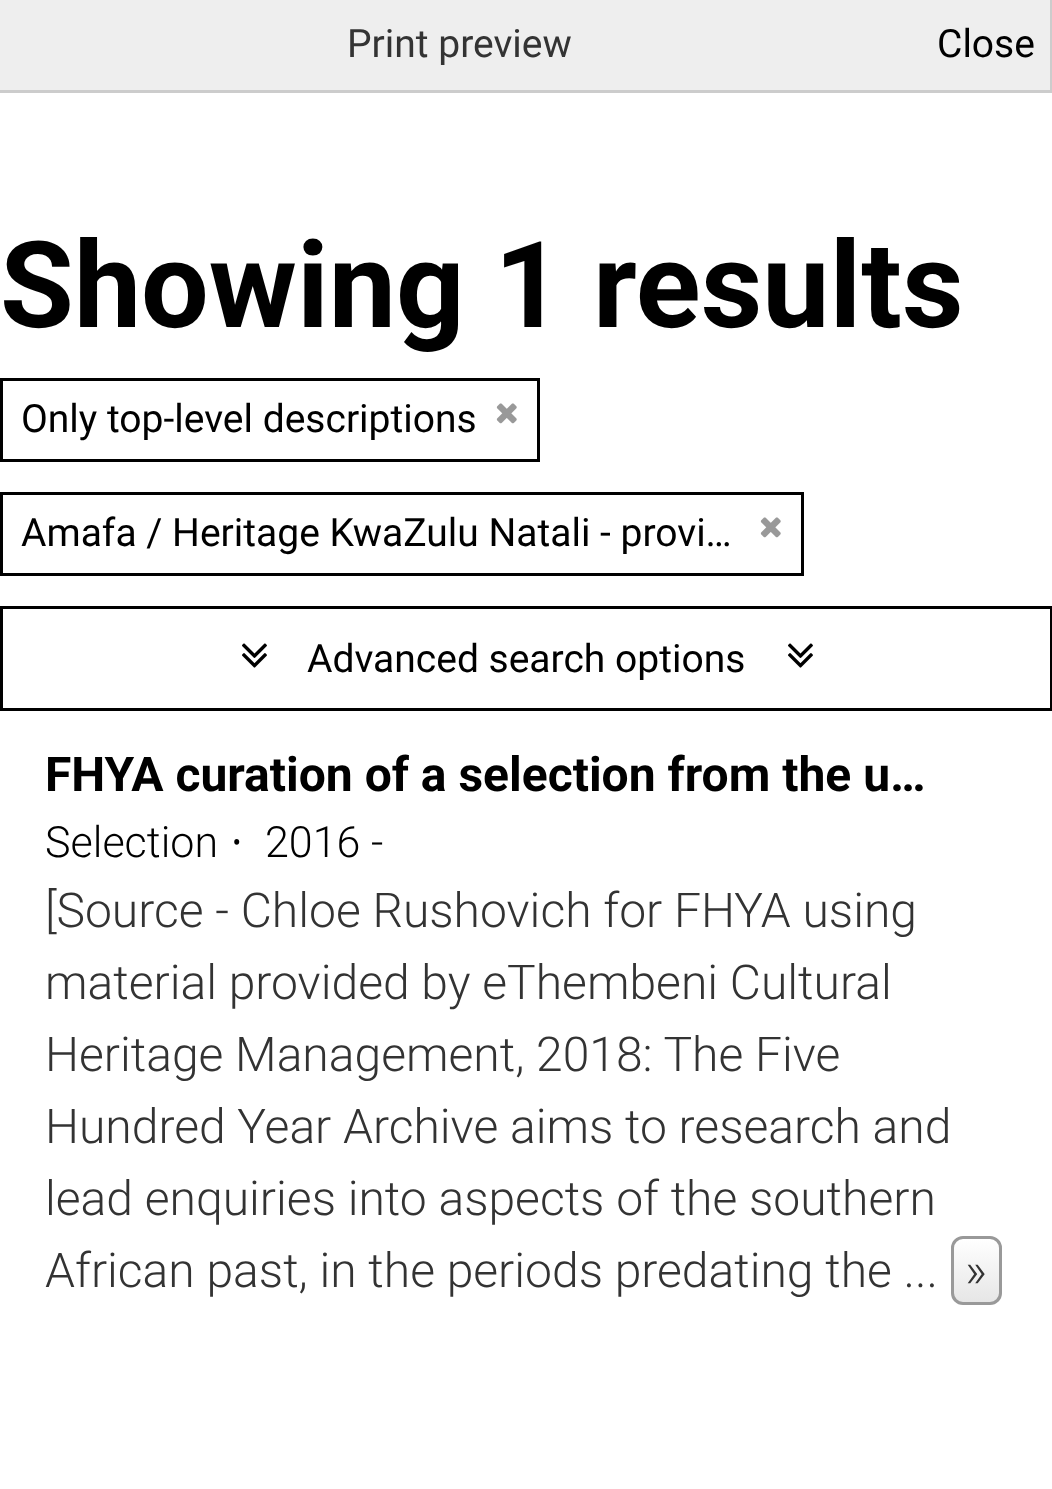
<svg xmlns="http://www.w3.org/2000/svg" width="1052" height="1489">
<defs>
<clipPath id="clip1"><rect x="951" y="1236" width="51" height="69" rx="12"/></clipPath>
<linearGradient id="g1" gradientUnits="userSpaceOnUse" x1="977" y1="1239" x2="977" y2="1302"><stop offset="0" stop-color="#fff"/><stop offset="1" stop-color="#e6e6e6"/></linearGradient>
</defs>
<rect width="100%" height="100%" fill="#fff"/>
<rect width="1050" height="90" fill="#eee"/>
<rect x="1050" width="2" height="93" fill="#ccc"/>
<rect y="90" width="1052" height="3" fill="#ccc"/>
<text x="347" y="57" style="font-family:Roboto;font-size:39px;fill:#333">Print preview</text>
<text x="937" y="57" style="font-family:Roboto;font-size:39px;fill:#000">Close</text>
<text x="0" y="327" style="font-family:Roboto;font-size:120px;font-weight:bold;fill:#000">Showing 1 results</text>
<rect x="1.5" y="379.5" width="537" height="81" fill="none" stroke="#000" stroke-width="3"/>
<text x="21" y="432" style="font-family:Roboto;font-size:39px;fill:#000">Only top-level descriptions</text>
<image x="496" y="403" width="21" height="21" href="media/1.png"/>
<rect x="1.5" y="493.5" width="801" height="81" fill="none" stroke="#000" stroke-width="3"/>
<text x="21" y="546" style="font-family:Roboto;font-size:39px;fill:#000">Amafa / Heritage KwaZulu Natali - provi…</text>
<image x="760" y="517" width="21" height="21" href="media/1.png"/>
<rect x="1.5" y="607.5" width="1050" height="102" fill="none" stroke="#000" stroke-width="3"/>
<image x="242" y="643" width="25" height="25" href="media/2.png"/>
<text x="307" y="672" style="font-family:Roboto;font-size:39px;fill:#000">Advanced search options</text>
<image x="788" y="643" width="25" height="25" href="media/2.png"/>
<text x="45" y="791" style="font-family:Roboto;font-size:48px;font-weight:bold;fill:#000">FHYA curation of a selection from the u…</text>
<text x="45" y="857" style="font-family:Roboto;font-size:43px;font-weight:300;fill:#000">Selection</text>
<text x="231" y="857" style="font-family:Open Sans;font-size:43px;fill:#000">·</text>
<text x="265" y="857" style="font-family:Roboto;font-size:43px;font-weight:300;fill:#000">2016 -</text>
<text x="45" y="927" style="font-family:Roboto;font-size:48px;font-weight:300;fill:#333">[Source - Chloe Rushovich for FHYA using</text>
<text x="45" y="999" style="font-family:Roboto;font-size:48px;font-weight:300;fill:#333">material provided by eThembeni Cultural</text>
<text x="45" y="1071" style="font-family:Roboto;font-size:48px;font-weight:300;fill:#333">Heritage Management, 2018: The Five</text>
<text x="45" y="1143" style="font-family:Roboto;font-size:48px;font-weight:300;fill:#333">Hundred Year Archive aims to research and</text>
<text x="45" y="1215" style="font-family:Roboto;font-size:48px;font-weight:300;fill:#333">lead enquiries into aspects of the southern</text>
<text x="45" y="1287" style="font-family:Roboto;font-size:48px;font-weight:300;fill:#333">African past, in the periods predating the ...</text>
<g clip-path="url(#clip1)">
<rect x="951" y="1239" width="51" height="63" fill="url(#g1)"/>
</g>
<rect x="952.5" y="1237.5" width="48" height="66" rx="10.5" fill="none" stroke="#999" stroke-width="3"/>
<text x="965" y="1287" style="font-family:Roboto;font-size:48px;font-weight:300;fill:#333">»</text>
</svg>
